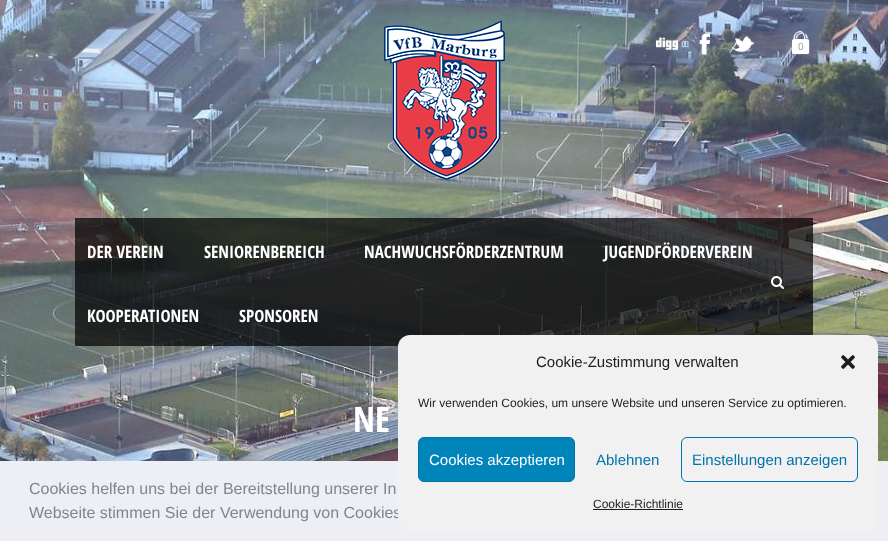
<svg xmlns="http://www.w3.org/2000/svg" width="888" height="541">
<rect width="100%" height="100%" fill="#fff"/>
<image x="0" y="0" width="888" height="461" href="media/1.png"/>
<image x="656" y="37" width="22" height="14" href="media/2.png"/>
<image x="699" y="33" width="11" height="22" href="media/3.png"/>
<image x="732" y="36" width="22" height="17" href="media/4.png"/>
<image x="792" y="31" width="18" height="23" href="media/5.png"/>
<text x="798" y="50" style="font-family:Open Sans;font-size:10px;fill:#999">0</text>
<image x="384" y="20" width="121" height="160" href="media/6.png"/>
<rect x="75" y="218" width="738" height="128" fill="#000000b3"/>
<text x="87" y="258" style="font-family:Open Sans Condensed;font-size:17px;font-weight:bold;fill:#fff">DER VEREIN</text>
<text x="204" y="258" style="font-family:Open Sans Condensed;font-size:17px;font-weight:bold;fill:#fff">SENIORENBEREICH</text>
<text x="364" y="258" style="font-family:Open Sans Condensed;font-size:17px;font-weight:bold;fill:#fff">NACHWUCHSFÖRDERZENTRUM</text>
<text x="604" y="258" style="font-family:Open Sans Condensed;font-size:17px;font-weight:bold;fill:#fff">JUGENDFÖRDERVEREIN</text>
<text x="87" y="322" style="font-family:Open Sans Condensed;font-size:17px;font-weight:bold;fill:#fff">KOOPERATIONEN</text>
<text x="239" y="322" style="font-family:Open Sans Condensed;font-size:17px;font-weight:bold;fill:#fff">SPONSOREN</text>
<image x="771" y="276" width="13" height="13" href="media/7.png"/>
<text x="353" y="432" style="font-family:Open Sans Condensed;font-size:35px;font-weight:bold;fill:#fff">NE</text>
<rect y="461" width="888" height="80" fill="#edeff5"/>
<text x="29" y="494" style="font-family:Liberation Sans;font-size:16px;fill:#838391">Cookies helfen uns bei der Bereitstellung unserer In</text>
<text x="29" y="518" style="font-family:Liberation Sans;font-size:16px;fill:#838391">Webseite stimmen Sie der Verwendung von Cookies</text>
<rect x="398" y="335" width="480" height="196" rx="12" fill="#f1f1f1"/>
<text x="536" y="367" style="font-family:Liberation Sans;font-size:15px;fill:#191e23">Cookie-Zustimmung verwalten</text>
<image x="841" y="355" width="14" height="14" href="media/8.png"/>
<text x="418" y="407" style="font-family:Liberation Sans;font-size:12px;fill:#191e23">Wir verwenden Cookies, um unsere Website und unseren Service zu optimieren.</text>
<rect x="418.5" y="437.5" width="156" height="44" rx="5.5" fill="#0085ba" stroke="#0073aa"/>
<text x="429" y="465" style="font-family:Liberation Sans;font-size:15px;fill:#fff">Cookies akzeptieren</text>
<text x="596" y="465" style="font-family:Liberation Sans;font-size:15px;fill:#0073aa">Ablehnen</text>
<rect x="681.5" y="437.5" width="176" height="44" rx="5.5" fill="none" stroke="#0073aa"/>
<text x="692" y="465" style="font-family:Liberation Sans;font-size:15px;fill:#0073aa">Einstellungen anzeigen</text>
<text x="593" y="508" style="font-family:Liberation Sans;font-size:12px;fill:#191e23">Cookie-Richtlinie</text>
<rect x="593" y="509" width="90" height="1" fill="#191e23"/>
</svg>
